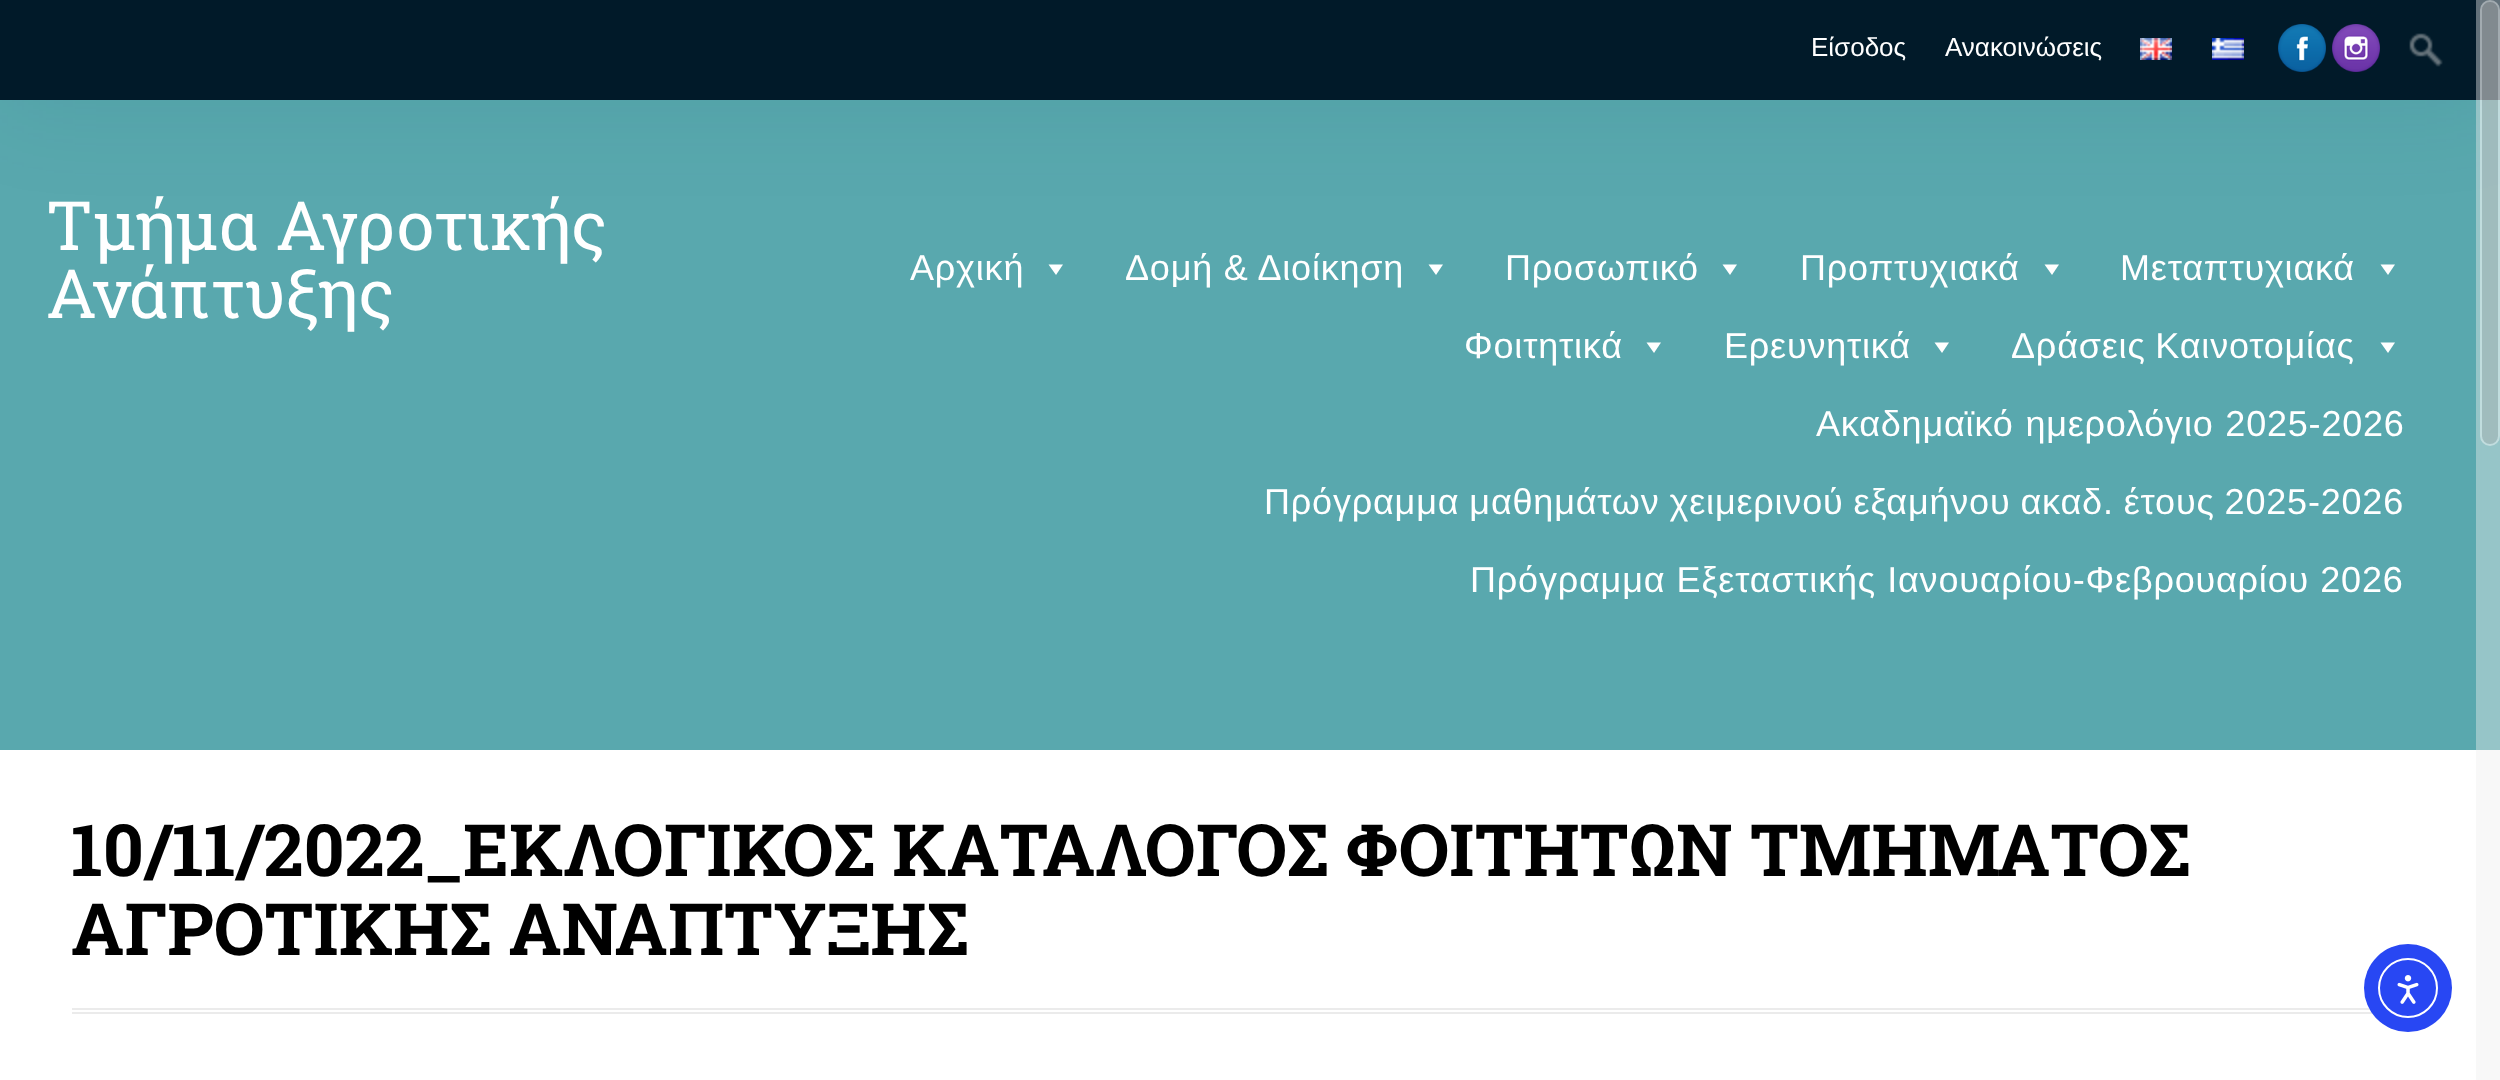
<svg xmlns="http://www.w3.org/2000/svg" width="2500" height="1080">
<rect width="100%" height="100%" fill="#fff"/>
<rect y="100" width="2500" height="650" fill="#59a8ae"/>
<rect width="2500" height="100" fill="#004f551a" filter="blur(50px)"/>
<rect width="2500" height="100" fill="#011a29"/>
<text x="1811" y="56" style="font-family:Liberation Sans;font-size:26px;fill:#fff">Είσοδος</text>
<text x="1945" y="56" style="font-family:Liberation Sans;font-size:26px;fill:#fff">Ανακοινώσεις</text>
<image x="2140" y="38" width="32" height="22" href="media/1.png"/>
<image x="2212" y="38" width="32" height="22" href="media/2.png"/>
<image x="2278" y="24" width="48" height="48" href="media/3.png"/>
<image x="2332" y="24" width="48" height="48" href="media/4.png"/>
<image x="2409" y="33" width="34" height="34" href="media/5.png"/>
<text x="46" y="250" style="font-family:Roboto Slab;font-size:68px;fill:#fff">Τμήμα Αγροτικής</text>
<text x="46" y="318" style="font-family:Roboto Slab;font-size:68px;fill:#fff">Ανάπτυξης</text>
<text x="910" y="280" style="font-family:Liberation Sans;font-size:36px;letter-spacing:0.8px;fill:#fff">Αρχική</text>
<path d="M1063 264.5l-7 10.5l-7.5-10.5z" fill="#fff"/>
<text x="1125" y="280" style="font-family:Liberation Sans;font-size:36px;letter-spacing:0.8px;fill:#fff">Δομή &amp; Διοίκηση</text>
<path d="M1443 264.5l-7 10.5l-7.5-10.5z" fill="#fff"/>
<text x="1505" y="280" style="font-family:Liberation Sans;font-size:36px;letter-spacing:0.8px;fill:#fff">Προσωπικό</text>
<path d="M1737 264.5l-7 10.5l-7.5-10.5z" fill="#fff"/>
<text x="1800" y="280" style="font-family:Liberation Sans;font-size:36px;letter-spacing:0.8px;fill:#fff">Προπτυχιακά</text>
<path d="M2059 264.5l-7 10.5l-7.5-10.5z" fill="#fff"/>
<text x="2120" y="280" style="font-family:Liberation Sans;font-size:36px;letter-spacing:0.8px;fill:#fff">Μεταπτυχιακά</text>
<path d="M2395 264.5l-7 10.5l-7.5-10.5z" fill="#fff"/>
<text x="1464" y="358" style="font-family:Liberation Sans;font-size:36px;letter-spacing:0.8px;fill:#fff">Φοιτητικά</text>
<path d="M1661 342.5l-7 10.5l-7.5-10.5z" fill="#fff"/>
<text x="1724" y="358" style="font-family:Liberation Sans;font-size:36px;letter-spacing:0.8px;fill:#fff">Ερευνητικά</text>
<path d="M1949 342.5l-7 10.5l-7.5-10.5z" fill="#fff"/>
<text x="2011" y="358" word-spacing="-1" style="font-family:Liberation Sans;font-size:36px;letter-spacing:0.8px;fill:#fff">Δράσεις Καινοτομίας</text>
<path d="M2395 342.5l-7 10.5l-7.5-10.5z" fill="#fff"/>
<text x="1816" y="436" word-spacing="1" style="font-family:Liberation Sans;font-size:36px;letter-spacing:0.8px;fill:#fff">Ακαδημαϊκό ημερολόγιο 2025-2026</text>
<text x="1264" y="514" word-spacing="-0.75" style="font-family:Liberation Sans;font-size:36px;letter-spacing:0.8px;fill:#fff">Πρόγραμμα μαθημάτων χειμερινού εξαμήνου ακαδ. έτους 2025-2026</text>
<text x="1470" y="592" word-spacing="0.5" style="font-family:Liberation Sans;font-size:36px;letter-spacing:0.8px;fill:#fff">Πρόγραμμα Εξεταστικής Ιανουαρίου-Φεβρουαρίου 2026</text>
<text x="71" y="876" style="font-family:Roboto Slab;font-size:72px;font-weight:bold;fill:#000">10/11/2022_ΕΚΛΟΓΙΚΟΣ ΚΑΤΑΛΟΓΟΣ ΦΟΙΤΗΤΩΝ ΤΜΗΜΑΤΟΣ</text>
<text x="71" y="955" style="font-family:Roboto Slab;font-size:72px;font-weight:bold;fill:#000">ΑΓΡΟΤΙΚΗΣ ΑΝΑΠΤΥΞΗΣ</text>
<rect x="72" y="1008" width="2298" height="2" fill="#ebebeb"/>
<rect x="72" y="1012" width="2301" height="2" fill="#ebebeb"/>
<rect x="2476" width="24" height="1080" fill="#eeeeee69"/>
<rect x="2482" y="2" width="16" height="442" rx="8" fill="#afafaf69"/>
<rect x="2481" y="1" width="18" height="444" rx="9" fill="none" stroke="#ffffff69" stroke-width="2"/>
<circle cx="2408" cy="988" r="44" fill="#2847f3"/>
<circle cx="2408" cy="988" r="29" fill="none" stroke="#fff" stroke-width="2"/>
<image x="2397" y="975" width="22" height="29" href="media/6.png"/>
</svg>
